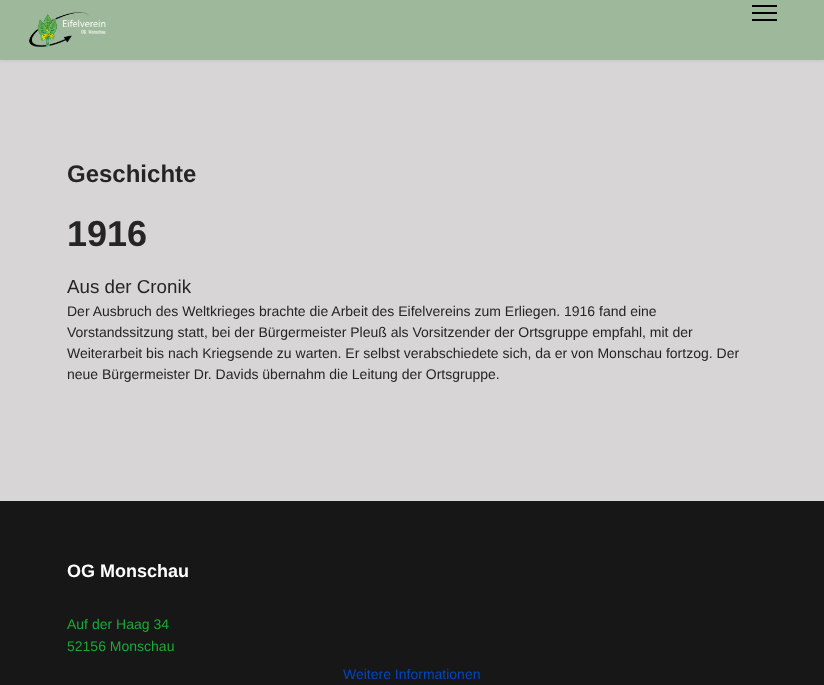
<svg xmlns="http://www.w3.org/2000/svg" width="824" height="685">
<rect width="100%" height="100%" fill="#d7d5d5"/>
<rect width="824" height="60" fill="#0000001a" filter="blur(2px)"/>
<rect width="824" height="60" fill="#9db89a"/>
<image x="29" y="12" width="77" height="35" href="media/1.png"/>
<rect x="752" y="5" width="25" height="2" fill="#000"/>
<rect x="752" y="12" width="25" height="2" fill="#000"/>
<rect x="752" y="19" width="25" height="2" fill="#000"/>
<text x="67" y="182" style="font-family:Liberation Sans;font-size:24px;font-weight:bold;fill:#252525">Geschichte</text>
<text x="67" y="246" style="font-family:Liberation Sans;font-size:36px;font-weight:bold;fill:#252525">1916</text>
<text x="67" y="293" style="font-family:Liberation Sans;font-size:18.75px;fill:#252525">Aus der Cronik</text>
<text x="67" y="316" style="font-family:Liberation Sans;font-size:14px;fill:#252525">Der Ausbruch des Weltkrieges brachte die Arbeit des Eifelvereins zum Erliegen. 1916 fand eine</text>
<text x="67" y="337" style="font-family:Liberation Sans;font-size:14px;fill:#252525">Vorstandssitzung statt, bei der Bürgermeister Pleuß als Vorsitzender der Ortsgruppe empfahl, mit der</text>
<text x="67" y="358" style="font-family:Liberation Sans;font-size:14px;fill:#252525">Weiterarbeit bis nach Kriegsende zu warten. Er selbst verabschiedete sich, da er von Monschau fortzog. Der</text>
<text x="67" y="379" style="font-family:Liberation Sans;font-size:14px;fill:#252525">neue Bürgermeister Dr. Davids übernahm die Leitung der Ortsgruppe.</text>
<rect y="501" width="824" height="184" fill="#171717"/>
<text x="67" y="577" style="font-family:Liberation Sans;font-size:18px;font-weight:bold;fill:#fff">OG Monschau</text>
<text x="67" y="629" style="font-family:Liberation Sans;font-size:14px;fill:#1ea838">Auf der Haag 34</text>
<text x="67" y="651" style="font-family:Liberation Sans;font-size:14px;fill:#1ea838">52156 Monschau</text>
<text x="343" y="679" style="font-family:Liberation Sans;font-size:14px;fill:#0345bf">Weitere Informationen</text>
</svg>
